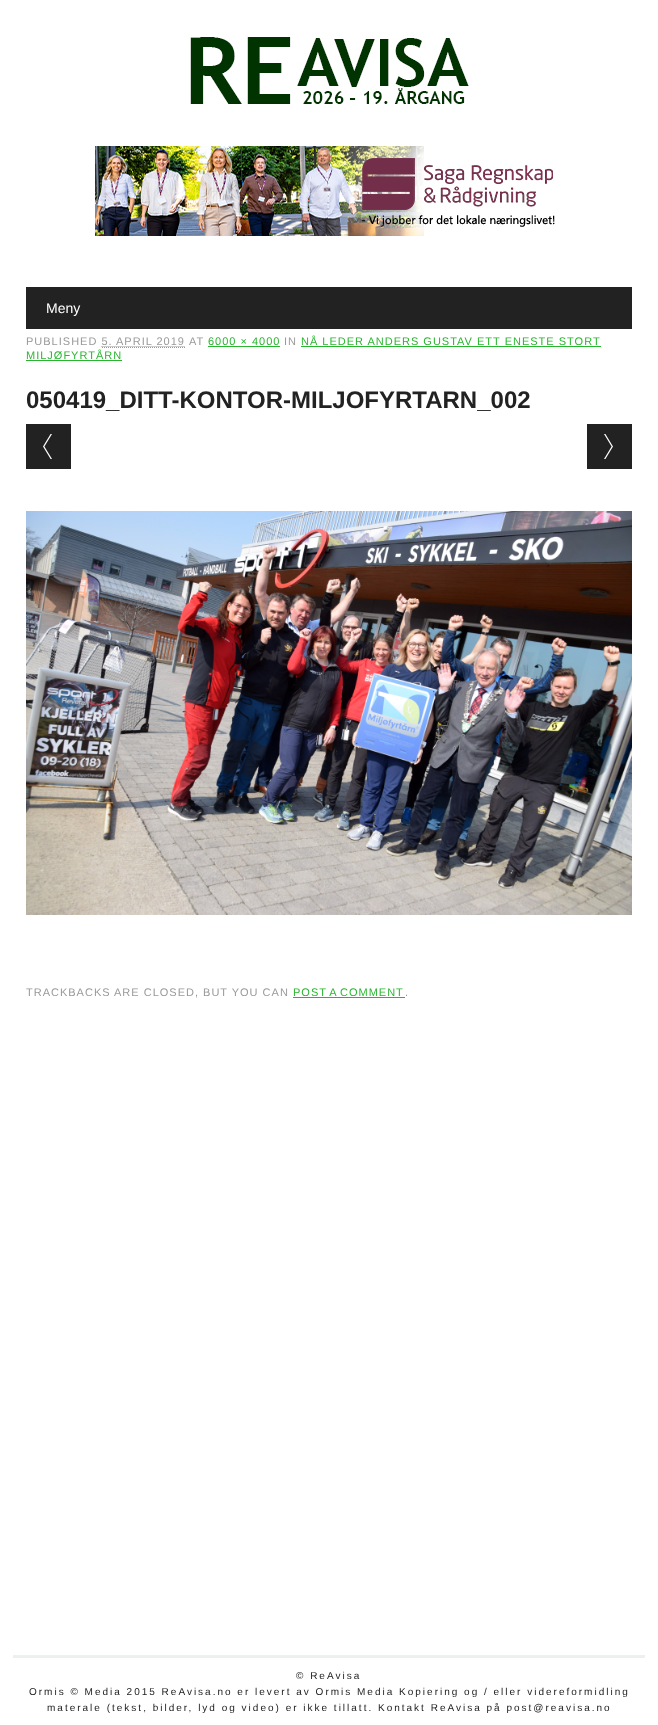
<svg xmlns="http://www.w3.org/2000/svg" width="658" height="1725">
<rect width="100%" height="100%" fill="#fff"/>
<image x="190" y="34" width="279" height="71" href="media/1.png"/>
<image x="95" y="146" width="460" height="90" href="media/2.png"/>
<rect x="26" y="287" width="606" height="42" fill="#222"/>
<text x="46" y="313" style="font-family:Liberation Sans;font-size:14px;fill:#fff">Meny</text>
<text x="26" y="345" style="font-family:Liberation Sans;font-size:11px;letter-spacing:1px;fill:#999">PUBLISHED 5. APRIL 2019</text>
<text x="189" y="345" style="font-family:Liberation Sans;font-size:11px;letter-spacing:1px;fill:#999">AT</text>
<text x="208" y="345" style="font-family:Liberation Sans;font-size:11px;letter-spacing:1px;fill:#29b530">6000 × 4000</text>
<rect x="208" y="346" width="72" height="1" fill="#29b530"/>
<text x="284" y="345" style="font-family:Liberation Sans;font-size:11px;letter-spacing:1px;fill:#999">IN</text>
<text x="301" y="345" style="font-family:Liberation Sans;font-size:11px;letter-spacing:1px;fill:#29b530">NÅ LEDER ANDERS GUSTAV ETT ENESTE STORT</text>
<rect x="301" y="346" width="300" height="1" fill="#29b530"/>
<path d="M101.5 346.5h84" fill="none" stroke="#999" stroke-dasharray="1 1"/>
<path d="M102 347.5h83" fill="none" stroke="#999" stroke-dasharray="1 1"/>
<text x="26" y="359" style="font-family:Liberation Sans;font-size:11px;letter-spacing:1px;fill:#29b530">MILJØFYRTÅRN</text>
<rect x="26" y="360" width="96" height="1" fill="#29b530"/>
<text x="26" y="408" style="font-family:Liberation Sans;font-size:24px;font-weight:bold;fill:#222">050419_DITT-KONTOR-MILJOFYRTARN_002</text>
<rect x="26" y="424" width="45" height="45" fill="#222"/>
<image x="43" y="434" width="9" height="25" href="media/3.png"/>
<rect x="587" y="424" width="45" height="45" fill="#222"/>
<image x="604" y="434" width="9" height="25" href="media/4.png"/>
<image x="26" y="511" width="606" height="404" href="media/5.png"/>
<text x="26" y="996" style="font-family:Liberation Sans;font-size:11px;letter-spacing:1px;fill:#999">TRACKBACKS ARE CLOSED, BUT YOU CAN</text>
<text x="293" y="996" word-spacing="-1" style="font-family:Liberation Sans;font-size:11px;letter-spacing:1px;fill:#29b530">POST A COMMENT</text>
<rect x="293" y="997" width="112" height="1" fill="#29b530"/>
<text x="405" y="996" style="font-family:Liberation Sans;font-size:11px;letter-spacing:1px;fill:#999">.</text>
<rect x="13" y="1655" width="632" height="3" fill="#ecf0f1"/>
<text x="296" y="1679" style="font-family:Liberation Sans;font-size:10px;letter-spacing:2px;fill:#222">© ReAvisa</text>
<text x="29" y="1695" style="font-family:Liberation Sans;font-size:10px;letter-spacing:2px;fill:#222">Ormis © Media 2015 ReAvisa.no er levert av Ormis Media Kopiering og / eller videreformidling</text>
<text x="47" y="1711" style="font-family:Liberation Sans;font-size:10px;letter-spacing:2px;fill:#222">materale (tekst, bilder, lyd og video) er ikke tillatt. Kontakt ReAvisa på post@reavisa.no</text>
</svg>
